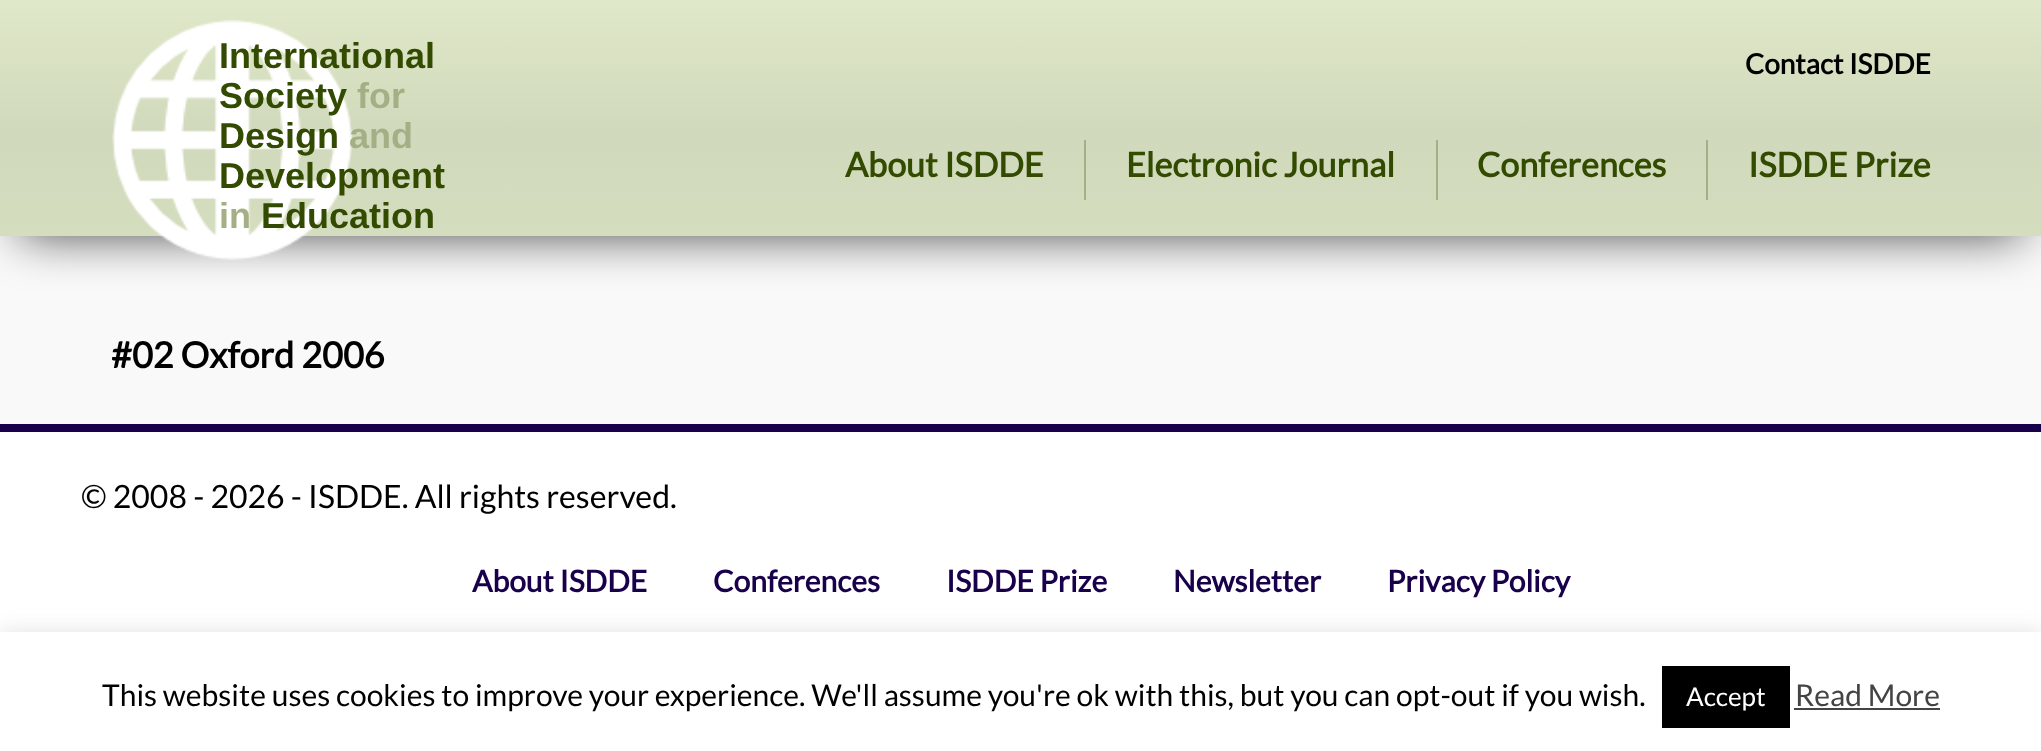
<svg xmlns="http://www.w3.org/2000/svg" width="2041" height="751">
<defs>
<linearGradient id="g1" gradientUnits="userSpaceOnUse" x1="1021" y1="0" x2="1021" y2="236"><stop offset="0" stop-color="#dfe8c8"/><stop offset="0.57" stop-color="#d1d9bc"/><stop offset="1" stop-color="#d4ddbe"/></linearGradient>
</defs>
<rect width="100%" height="100%" fill="#f9f9f9"/>
<rect x="20" y="38" width="2002" height="196" fill="#000000bf" filter="blur(25px)"/>
<rect width="2041" height="236" fill="url(#g1)"/>
<image x="112" y="20" width="240" height="240" href="media/1.png"/>
<text x="219" y="68" style="font-family:Liberation Sans;font-size:36px;font-weight:bold;fill:#324b00">International</text>
<text x="219" y="108" style="font-family:Liberation Sans;font-size:36px;font-weight:bold;fill:#324b00">Society</text>
<text x="357" y="108" style="font-family:Liberation Sans;font-size:36px;font-weight:bold;fill:#a3b086">for</text>
<text x="219" y="148" style="font-family:Liberation Sans;font-size:36px;font-weight:bold;fill:#324b00">Design</text>
<text x="349" y="148" style="font-family:Liberation Sans;font-size:36px;font-weight:bold;fill:#a3b086">and</text>
<text x="219" y="188" style="font-family:Liberation Sans;font-size:36px;font-weight:bold;fill:#324b00">Development</text>
<text x="219" y="228" style="font-family:Liberation Sans;font-size:36px;font-weight:bold;fill:#a3b086">in</text>
<text x="261" y="228" style="font-family:Liberation Sans;font-size:36px;font-weight:bold;fill:#324b00">Education</text>
<text x="1745" y="74" style="font-family:Lato;font-size:28px;font-weight:bold;fill:#000">Contact ISDDE</text>
<rect x="1084" y="140" width="2" height="60" fill="#a3b086"/>
<text x="845" y="177" style="font-family:Lato;font-size:34px;font-weight:bold;fill:#324b00">About ISDDE</text>
<rect x="1436" y="140" width="2" height="60" fill="#a3b086"/>
<text x="1126" y="177" style="font-family:Lato;font-size:34px;font-weight:bold;fill:#324b00">Electronic Journal</text>
<rect x="1706" y="140" width="2" height="60" fill="#a3b086"/>
<text x="1477" y="177" style="font-family:Lato;font-size:34px;font-weight:bold;fill:#324b00">Conferences</text>
<text x="1748" y="177" style="font-family:Lato;font-size:34px;font-weight:bold;fill:#324b00">ISDDE Prize</text>
<text x="111" y="368" style="font-family:Lato;font-size:36px;font-weight:bold;fill:#000">#02 Oxford 2006</text>
<rect y="432" width="2041" height="200" fill="#fff"/>
<rect y="424" width="2041" height="8" fill="#19004b"/>
<text x="81" y="508" style="font-family:Lato;font-size:32px;fill:#000">© 2008 - 2026 - ISDDE. All rights reserved.</text>
<text x="472" y="592" style="font-family:Lato;font-size:30px;font-weight:bold;fill:#19004b">About ISDDE</text>
<text x="713" y="592" style="font-family:Lato;font-size:30px;font-weight:bold;fill:#19004b">Conferences</text>
<text x="946" y="592" style="font-family:Lato;font-size:30px;font-weight:bold;fill:#19004b">ISDDE Prize</text>
<text x="1173" y="592" style="font-family:Lato;font-size:30px;font-weight:bold;fill:#19004b">Newsletter</text>
<text x="1387" y="592" style="font-family:Lato;font-size:30px;font-weight:bold;fill:#19004b">Privacy Policy</text>
<rect y="630" width="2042" height="120" fill="#acabab4d" filter="blur(10px)"/>
<rect y="632" width="2041" height="119" fill="#fff"/>
<text x="102" y="706" style="font-family:Lato;font-size:30px;fill:#000">This website uses cookies to improve your experience. We'll assume you're ok with this, but you can opt-out if you wish.</text>
<rect x="1662" y="666" width="128" height="62" fill="#000"/>
<text x="1686" y="706" style="font-family:Lato;font-size:26px;fill:#fff">Accept</text>
<text x="1795" y="706" style="font-family:Lato;font-size:30px;fill:#444">Read More</text>
<rect x="1794" y="708" width="146" height="2" fill="#444"/>
</svg>
